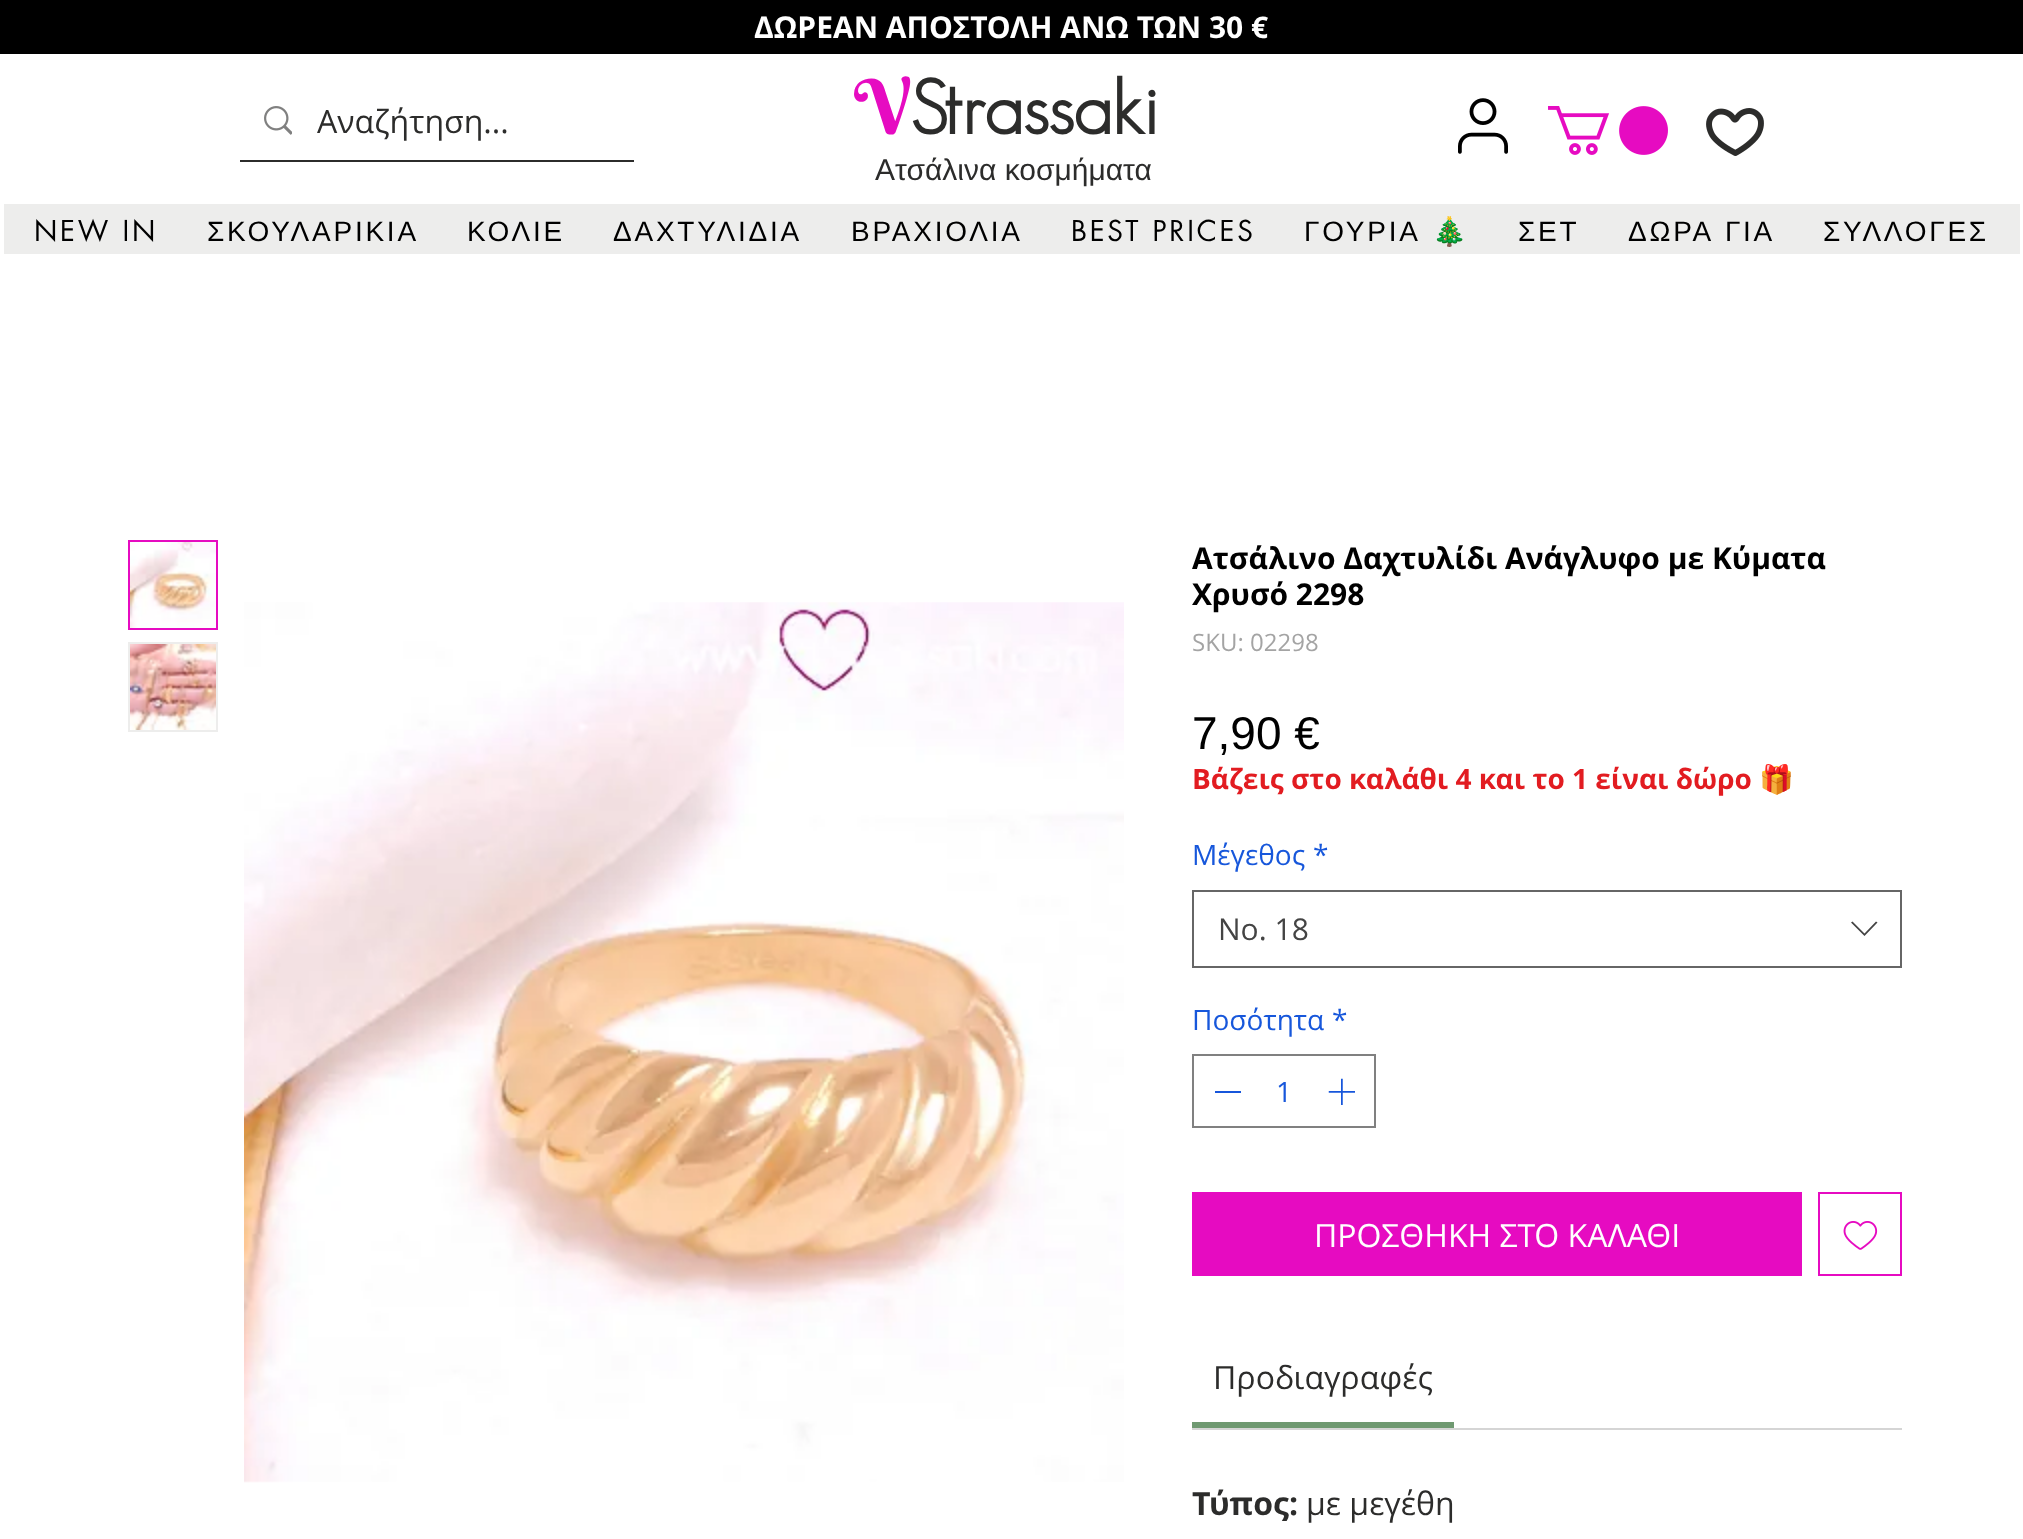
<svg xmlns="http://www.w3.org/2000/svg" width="2023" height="1539">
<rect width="100%" height="100%" fill="#fff"/>
<rect width="2023" height="54" fill="#000"/>
<text x="754" y="38" style="font-family:Open Sans;font-size:30px;font-weight:bold;fill:#fff">ΔΩΡΕΑΝ ΑΠΟΣΤΟΛΗ ΑΝΩ ΤΩΝ 30 €</text>
<rect x="240" y="160" width="394" height="2" fill="#2c2c2b"/>
<image x="264" y="106" width="28" height="29" href="media/1.png"/>
<text x="317" y="133" style="font-family:Open Sans;font-size:32px;fill:#2c2c2b">Αναζήτηση...</text>
<text x="854" y="134" style="font-family:Berkshire Swash;font-size:76px;fill:#e60bc1">V</text>
<text x="910" y="134" style="font-family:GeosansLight;font-size:76px;font-weight:bold;fill:#2c2c2b">Strassaki</text>
<text x="875" y="180" style="font-family:Liberation Sans;font-size:30px;fill:#2c2c2b">Ατσάλινα κοσμήματα</text>
<image x="1458" y="98" width="50" height="56" href="media/2.png"/>
<image x="1548" y="106" width="120" height="49" href="media/3.png"/>
<image x="1706" y="108" width="58" height="48" href="media/4.png"/>
<rect x="4" y="204" width="2016" height="50" fill="#ededec"/>
<text x="34" y="241" style="font-family:futura;font-size:28px;letter-spacing:2.75px;fill:#000">NEW IN</text>
<text x="207" y="241" style="font-family:Liberation Sans;font-size:28px;letter-spacing:2.75px;fill:#000">ΣΚΟΥΛΑΡΙΚΙΑ</text>
<text x="467" y="241" style="font-family:Liberation Sans;font-size:28px;letter-spacing:2.75px;fill:#000">ΚΟΛΙΕ</text>
<text x="613" y="241" style="font-family:Liberation Sans;font-size:28px;letter-spacing:2.75px;fill:#000">ΔΑΧΤΥΛΙΔΙΑ</text>
<text x="851" y="241" style="font-family:Liberation Sans;font-size:28px;letter-spacing:2.75px;fill:#000">ΒΡΑΧΙΟΛΙΑ</text>
<text x="1071" y="241" style="font-family:futura;font-size:28px;letter-spacing:2.75px;fill:#000">BEST PRICES</text>
<text x="1304" y="241" style="font-family:Liberation Sans;font-size:28px;letter-spacing:2.75px;fill:#000">ΓΟΥΡΙΑ</text>
<text x="1432" y="241" style="font-family:Noto Color Emoji;font-size:28px;letter-spacing:2.75px;fill:#000">🎄</text>
<text x="1518" y="241" style="font-family:Liberation Sans;font-size:28px;letter-spacing:2.75px;fill:#000">ΣΕΤ</text>
<text x="1628" y="241" word-spacing="2" style="font-family:Liberation Sans;font-size:28px;letter-spacing:2.75px;fill:#000">ΔΩΡΑ ΓΙΑ</text>
<text x="1823" y="241" style="font-family:Liberation Sans;font-size:28px;letter-spacing:2.75px;fill:#000">ΣΥΛΛΟΓΕΣ</text>
<rect x="129" y="541" width="88" height="88" fill="none" stroke="#e60bc1" stroke-width="2"/>
<image x="130" y="542" width="86" height="86" href="media/5.png"/>
<rect x="128" y="642" width="90" height="90" fill="#ededec"/>
<image x="130" y="644" width="86" height="86" href="media/6.png"/>
<image x="244" y="602" width="880" height="881" href="media/7.png"/>
<text x="1192" y="569" style="font-family:Open Sans;font-size:30px;font-weight:bold;fill:#000">Ατσάλινο Δαχτυλίδι Ανάγλυφο με Κύματα</text>
<text x="1192" y="605" style="font-family:Open Sans;font-size:30px;font-weight:bold;fill:#000">Χρυσό 2298</text>
<text x="1192" y="651" style="font-family:Open Sans;font-size:24px;fill:#a4a4a4">SKU: 02298</text>
<text x="1192" y="749" style="font-family:Liberation Sans;font-size:46px;fill:#000">7,90 €</text>
<text x="1192" y="789" style="font-family:Open Sans;font-size:28px;font-weight:bold;fill:#e21c21">Βάζεις στο καλάθι 4 και το 1 είναι δώρο</text>
<text x="1759" y="789" style="font-family:Noto Color Emoji;font-size:28px;font-weight:bold;fill:#e21c21">🎁</text>
<text x="1192" y="865" style="font-family:Open Sans;font-size:28px;fill:#1757db">Μέγεθος</text>
<text x="1313" y="865" style="font-family:Open Sans;font-size:28px;fill:#1757db">*</text>
<rect x="1193" y="891" width="708" height="76" fill="none" stroke="#666" stroke-width="2"/>
<text x="1218" y="940" style="font-family:Open Sans;font-size:30px;fill:#444">Νο. 18</text>
<path d="M1876 921.5l1.5 1l-13 13.5l-13.5-13.5l1.5-1l12 12z" fill="#444" fill-rule="evenodd"/>
<text x="1192" y="1030" style="font-family:Open Sans;font-size:28px;fill:#1757db">Ποσότητα</text>
<text x="1332" y="1030" style="font-family:Open Sans;font-size:28px;fill:#1757db">*</text>
<rect x="1193" y="1055" width="182" height="72" fill="none" stroke="#808080" stroke-width="2"/>
<rect x="1215" y="1091" width="26" height="2" fill="#1756db"/>
<text x="1276" y="1102" style="font-family:Open Sans;font-size:28px;fill:#1757db">1</text>
<image x="1328" y="1078" width="27" height="27" href="media/8.png"/>
<rect x="1192" y="1192" width="610" height="84" fill="#e60bc1"/>
<text x="1314" y="1247" style="font-family:Open Sans;font-size:32px;fill:#fff">ΠΡΟΣΘΗΚΗ ΣΤΟ ΚΑΛΑΘΙ</text>
<rect x="1819" y="1193" width="82" height="82" fill="none" stroke="#e60bc1" stroke-width="2"/>
<image x="1843" y="1221" width="35" height="29" href="media/9.png"/>
<rect x="1192" y="1428" width="710" height="2" fill="#d5d5d5"/>
<rect x="1192" y="1422" width="262" height="6" fill="#6f9971"/>
<text x="1213" y="1389" style="font-family:Open Sans;font-size:32px;fill:#2c2c2b">Προδιαγραφές</text>
<text x="1192" y="1515" style="font-family:Open Sans;font-size:32px;font-weight:bold;fill:#2c2c2b">Τύπος:</text>
<text x="1306" y="1515" style="font-family:Open Sans;font-size:32px;fill:#2c2c2b">με μεγέθη</text>
</svg>
